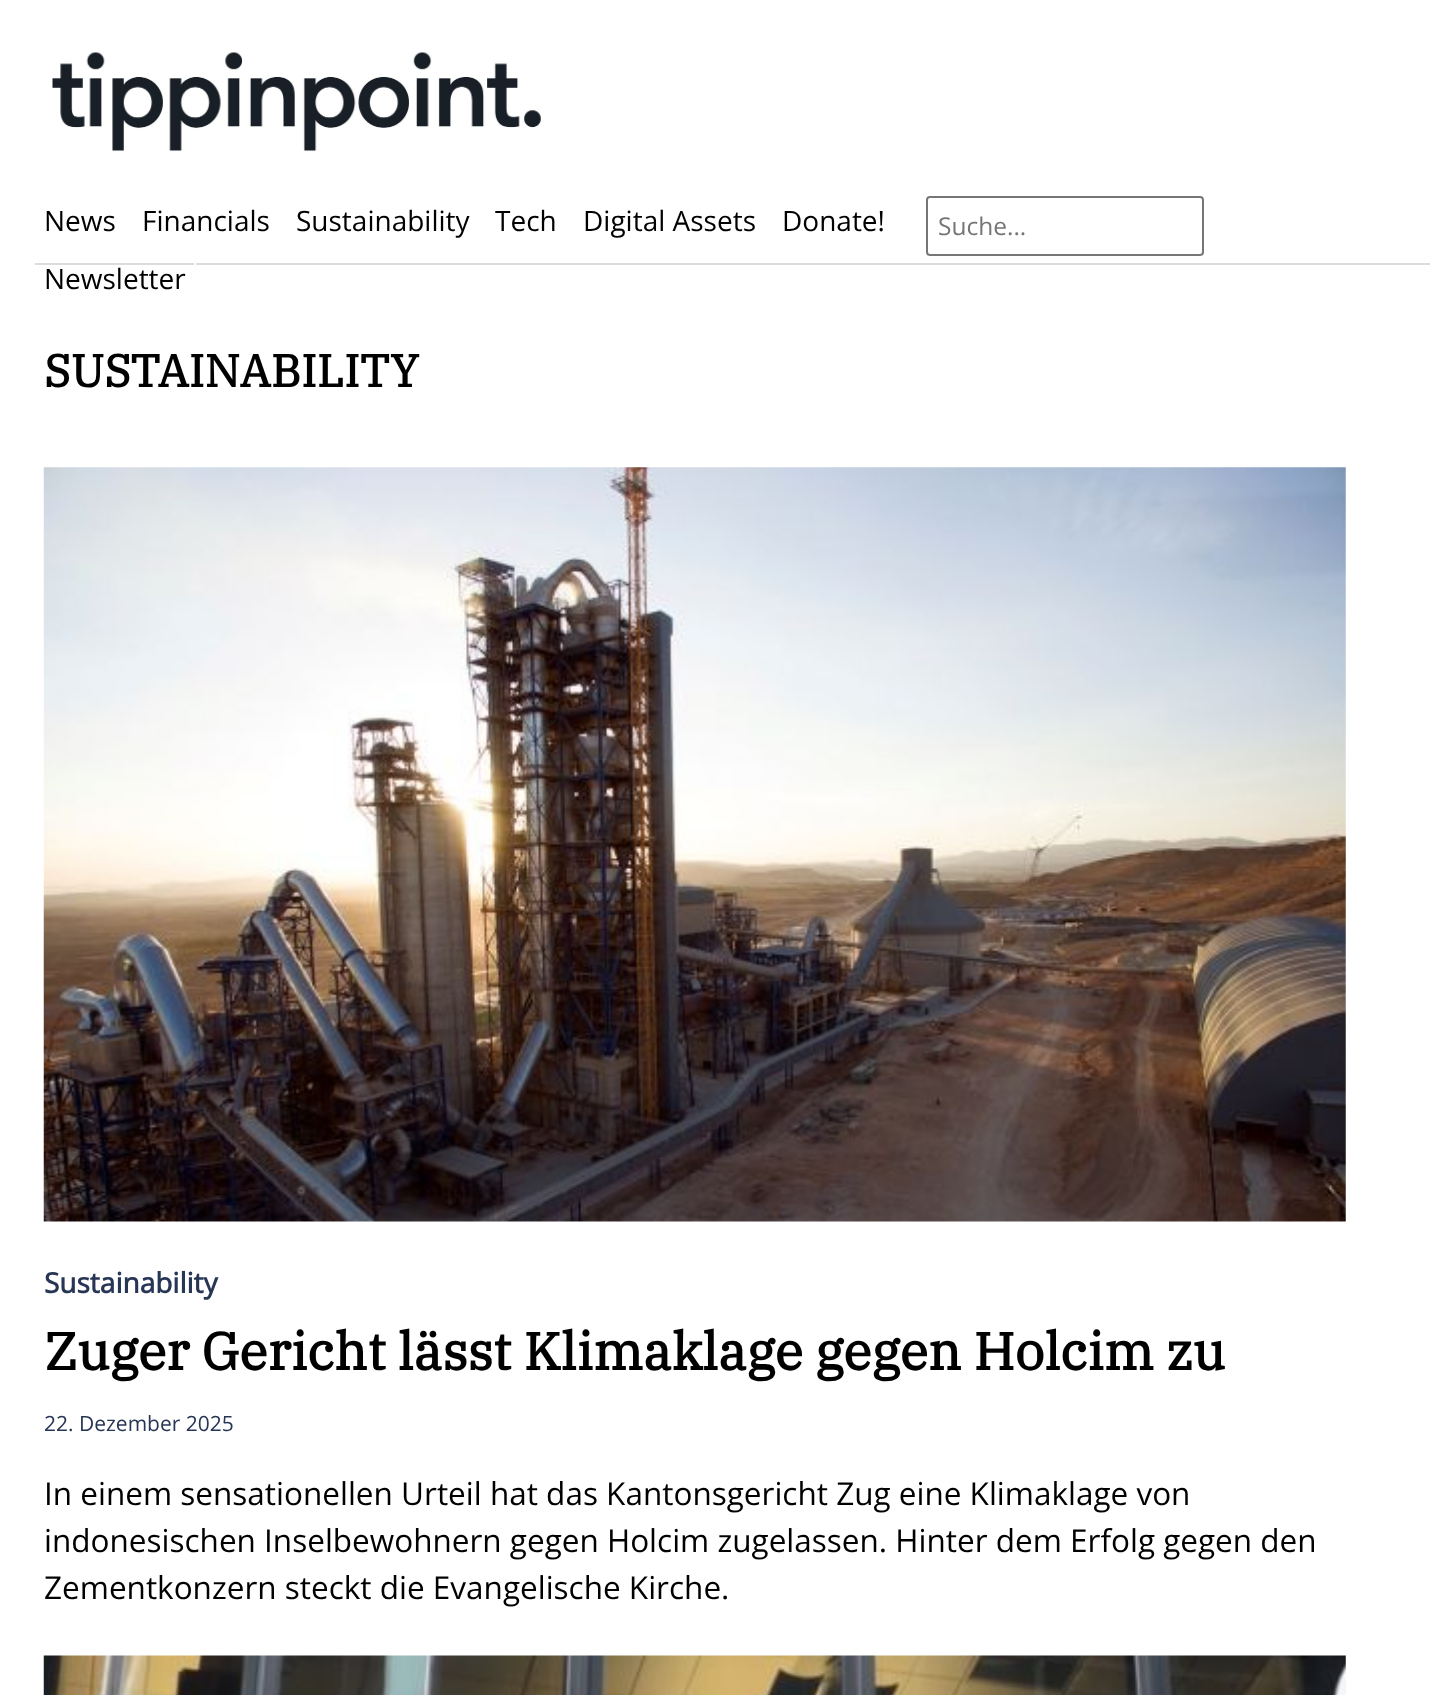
<svg xmlns="http://www.w3.org/2000/svg" width="1447" height="1695">
<rect width="100%" height="100%" fill="#fff"/>
<image x="52" y="52" width="489" height="99" href="media/1.png"/>
<rect x="35" y="263" width="1395" height="2" fill="#dcdcdc"/>
<text x="44" y="231" style="font-family:Open Sans;font-size:28px;fill:#000">News</text>
<text x="142" y="231" style="font-family:Open Sans;font-size:28px;fill:#000">Financials</text>
<text x="296" y="231" style="font-family:Open Sans;font-size:28px;fill:#000">Sustainability</text>
<text x="495" y="231" style="font-family:Open Sans;font-size:28px;fill:#000">Tech</text>
<text x="583" y="231" style="font-family:Open Sans;font-size:28px;fill:#000">Digital Assets</text>
<text x="782" y="231" style="font-family:Open Sans;font-size:28px;fill:#000">Donate!</text>
<rect x="194" y="263" width="2" height="2" fill="#fff"/>
<text x="44" y="289" style="font-family:Open Sans;font-size:28px;fill:#000">Newsletter</text>
<rect x="927" y="197" width="276" height="58" rx="3" fill="none" stroke="#767676" stroke-width="2"/>
<text x="938" y="235" style="font-family:Open Sans;font-size:24.5px;fill:#757575">Suche...</text>
<text x="44" y="387" style="font-family:IBM Plex Serif;font-size:45.5px;font-weight:bold;fill:#000">SUSTAINABILITY</text>
<image x="43" y="467" width="1303" height="755" href="media/2.png"/>
<text x="44" y="1293" style="font-family:Open Sans;font-size:28px;font-weight:bold;fill:#283655">Sustainability</text>
<text x="44" y="1370" style="font-family:IBM Plex Serif;font-size:52.5px;font-weight:bold;fill:#000">Zuger Gericht lässt Klimaklage gegen Holcim zu</text>
<text x="44" y="1431" style="font-family:Open Sans;font-size:21px;fill:#283655">22. Dezember 2025</text>
<text x="44" y="1505" style="font-family:Open Sans;font-size:31.5px;fill:#000">In einem sensationellen Urteil hat das Kantonsgericht Zug eine Klimaklage von</text>
<text x="44" y="1552" style="font-family:Open Sans;font-size:31.5px;fill:#000">indonesischen Inselbewohnern gegen Holcim zugelassen. Hinter dem Erfolg gegen den</text>
<text x="44" y="1599" style="font-family:Open Sans;font-size:31.5px;fill:#000">Zementkonzern steckt die Evangelische Kirche.</text>
<image x="43" y="1655" width="1303" height="40" href="media/3.png"/>
</svg>
